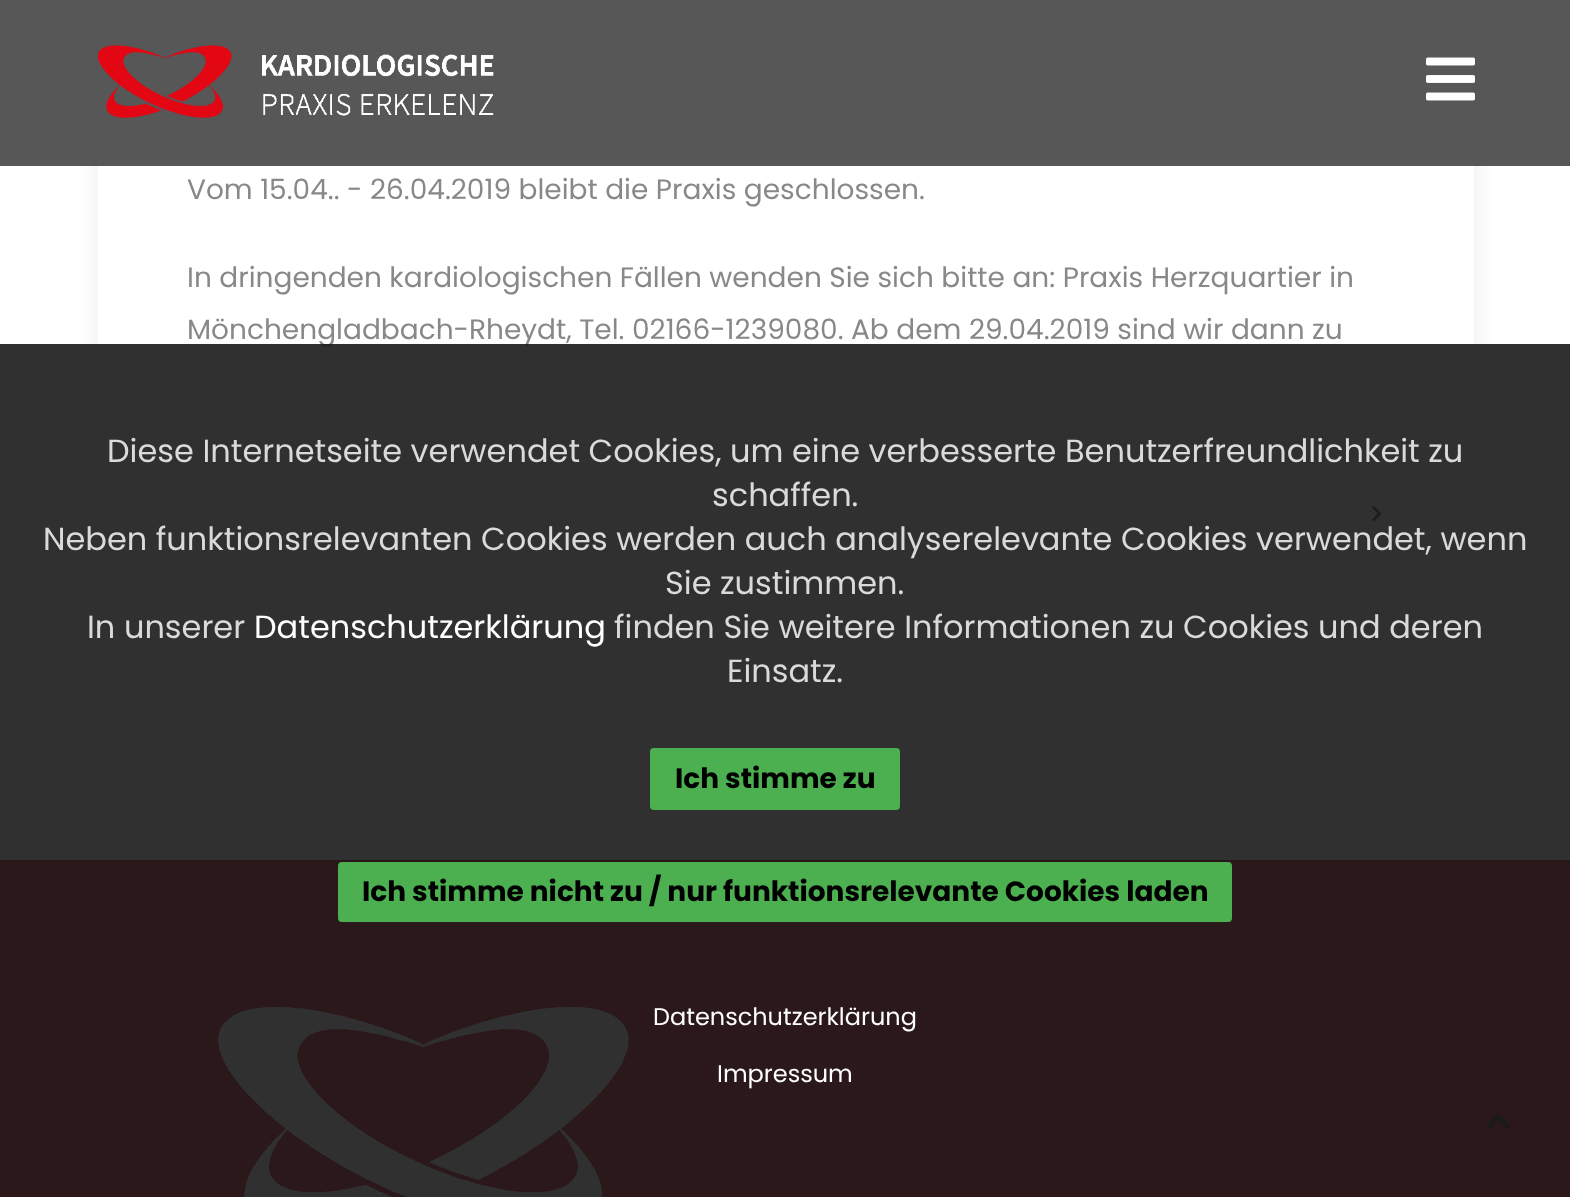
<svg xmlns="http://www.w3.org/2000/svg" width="1570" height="1197">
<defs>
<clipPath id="clip1"><path d="M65 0h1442v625h-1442zm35 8h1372c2 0 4 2 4 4v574c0 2-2 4-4 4h-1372c-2 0-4-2-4-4v-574c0-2 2-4 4-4z" clip-rule="evenodd"/></clipPath>
</defs>
<rect width="100%" height="100%" fill="#fff"/>
<g clip-path="url(#clip1)">
<rect x="96" y="12" width="1380" height="582" rx="4" fill="#00000012" filter="blur(10px)"/>
</g>
<rect x="97" y="9" width="1378" height="580" rx="3" fill="none" stroke="#f5f6f7" stroke-width="2"/>
<rect width="1570" height="166" fill="#454545e6"/>
<image x="97" y="45" width="397" height="73" href="media/1.png"/>
<image x="1426" y="57" width="49" height="44" href="media/2.png"/>
<text x="187" y="199" style="font-family:Poppins;font-size:28px;fill:#888">Vom 15.04.. - 26.04.2019 bleibt die Praxis geschlossen.</text>
<text x="187" y="287" style="font-family:Poppins;font-size:28px;fill:#888">In dringenden kardiologischen Fällen wenden Sie sich bitte an: Praxis Herzquartier in</text>
<text x="187" y="339" style="font-family:Poppins;font-size:28px;fill:#888">Mönchengladbach-Rheydt, Tel. 02166-1239080. Ab dem 29.04.2019 sind wir dann zu</text>
<rect x="188" y="444" width="1196" height="2" fill="#f5f6f7"/>
<image x="1372" y="506" width="10" height="15" href="media/3.png"/>
<rect y="862" width="1570" height="335" fill="#c20c23"/>
<rect y="860" width="1570" height="2" fill="#b80b21"/>
<image x="218" y="1007" width="411" height="190" href="media/4.png"/>
<image x="1486" y="1114" width="25" height="15" href="media/5.png"/>
<rect y="344" width="1570" height="853" fill="#191919e6"/>
<text x="107" y="462" style="font-family:Poppins;font-size:32px;fill:#dadada">Diese Internetseite verwendet Cookies, um eine verbesserte Benutzerfreundlichkeit zu</text>
<text x="712" y="506" style="font-family:Poppins;font-size:32px;fill:#dadada">schaffen.</text>
<text x="43" y="550" style="font-family:Poppins;font-size:32px;fill:#dadada">Neben funktionsrelevanten Cookies werden auch analyserelevante Cookies verwendet, wenn</text>
<text x="665" y="594" style="font-family:Poppins;font-size:32px;fill:#dadada">Sie zustimmen.</text>
<text x="87" y="638" style="font-family:Poppins;font-size:32px;fill:#dadada">In unserer</text>
<text x="254" y="638" style="font-family:Poppins;font-size:32px;fill:#fff">Datenschutzerklärung</text>
<text x="614" y="638" style="font-family:Poppins;font-size:32px;fill:#dadada">finden Sie weitere Informationen zu Cookies und deren</text>
<text x="727" y="682" style="font-family:Poppins;font-size:32px;fill:#dadada">Einsatz.</text>
<rect x="650" y="748" width="250" height="62" rx="4" fill="#4caf50"/>
<text x="675" y="788" style="font-family:Poppins;font-size:28px;font-weight:bold;fill:#000">Ich stimme zu</text>
<rect x="338" y="862" width="894" height="60" rx="4" fill="#4caf50"/>
<text x="362" y="901" style="font-family:Poppins;font-size:28px;font-weight:bold;fill:#000">Ich stimme nicht zu / nur funktionsrelevante Cookies laden</text>
<text x="653" y="1025" style="font-family:Poppins;font-size:24px;fill:#fff">Datenschutzerklärung</text>
<text x="717" y="1082" style="font-family:Poppins;font-size:24px;fill:#fff">Impressum</text>
</svg>
